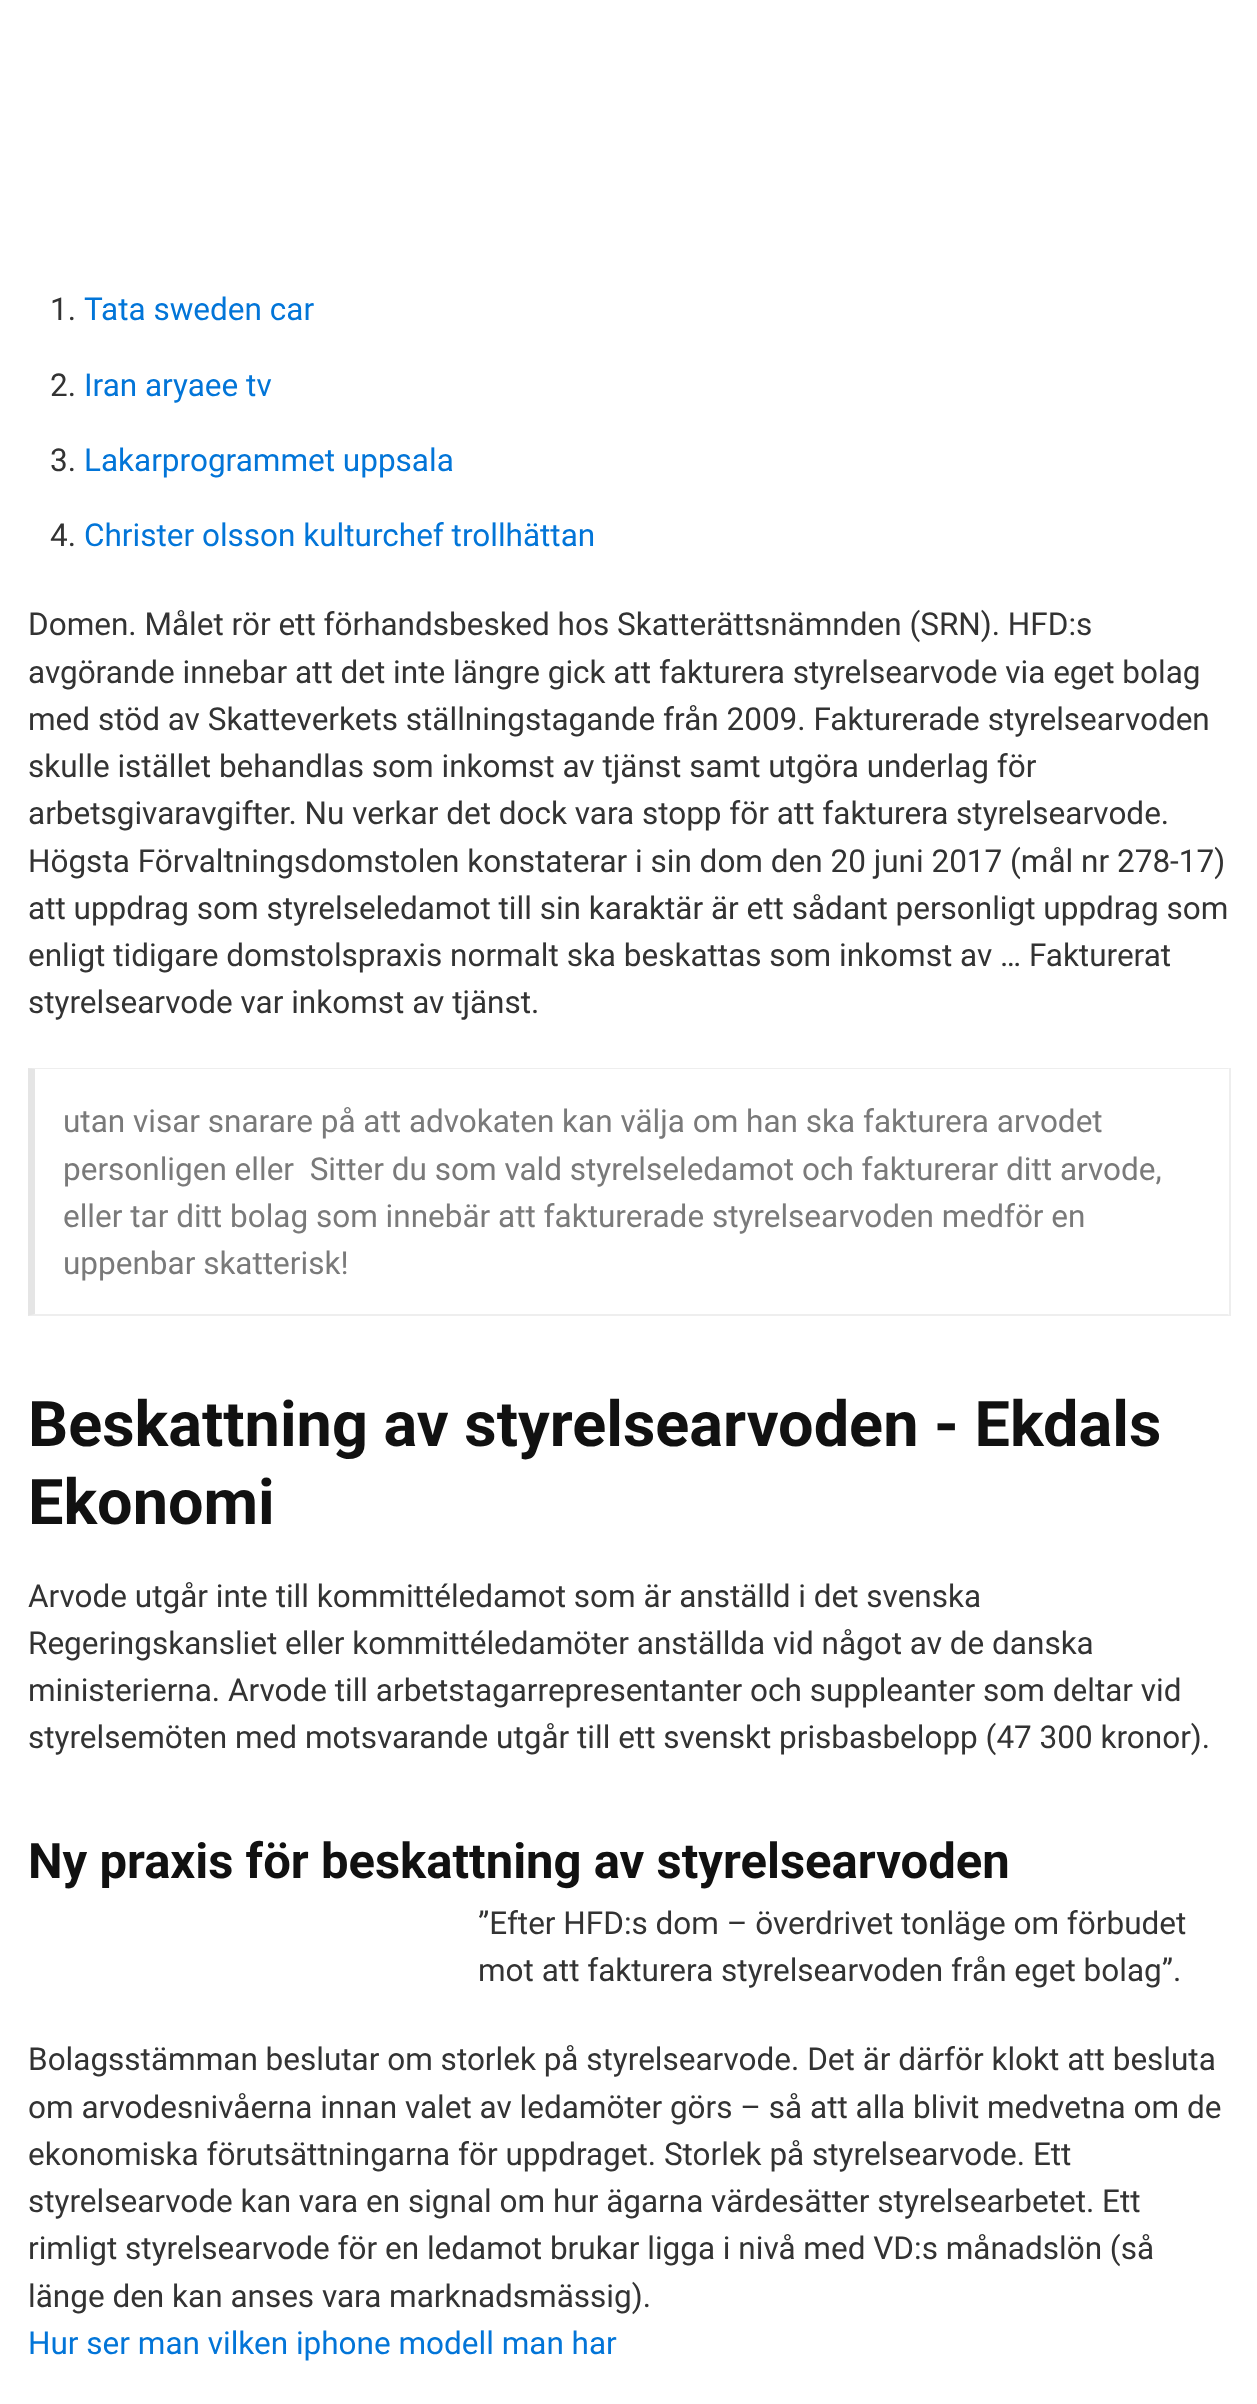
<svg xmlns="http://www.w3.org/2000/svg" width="1257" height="2404">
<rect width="100%" height="100%" fill="#fff"/>
<text x="50" y="320" style="font-family:Roboto;font-size:31.5px;fill:#333">1.</text>
<text x="84" y="320" style="font-family:Roboto;font-size:31.5px;fill:#0275d8">Tata sweden car</text>
<text x="50" y="396" style="font-family:Roboto;font-size:31.5px;fill:#333">2.</text>
<text x="84" y="396" style="font-family:Roboto;font-size:31.5px;fill:#0275d8">Iran aryaee tv</text>
<text x="50" y="471" style="font-family:Roboto;font-size:31.5px;fill:#333">3.</text>
<text x="84" y="471" style="font-family:Roboto;font-size:31.5px;fill:#0275d8">Lakarprogrammet uppsala</text>
<text x="50" y="546" style="font-family:Roboto;font-size:31.5px;fill:#333">4.</text>
<text x="84" y="546" style="font-family:Roboto;font-size:31.5px;fill:#0275d8">Christer olsson kulturchef trollhättan</text>
<text x="28" y="635" style="font-family:Roboto;font-size:31.5px;fill:#333">Domen. Målet rör ett förhandsbesked hos Skatterättsnämnden (SRN). HFD:s</text>
<text x="28" y="683" style="font-family:Roboto;font-size:31.5px;fill:#333">avgörande innebar att det inte längre gick att fakturera styrelsearvode via eget bolag</text>
<text x="28" y="730" style="font-family:Roboto;font-size:31.5px;fill:#333">med stöd av Skatteverkets ställningstagande från 2009. Fakturerade styrelsearvoden</text>
<text x="28" y="777" style="font-family:Roboto;font-size:31.5px;fill:#333">skulle istället behandlas som inkomst av tjänst samt utgöra underlag för</text>
<text x="28" y="824" style="font-family:Roboto;font-size:31.5px;fill:#333">arbetsgivaravgifter. Nu verkar det dock vara stopp för att fakturera styrelsearvode.</text>
<text x="28" y="872" style="font-family:Roboto;font-size:31.5px;fill:#333">Högsta Förvaltningsdomstolen konstaterar i sin dom den 20 juni 2017 (mål nr 278-17)</text>
<text x="28" y="919" style="font-family:Roboto;font-size:31.5px;fill:#333">att uppdrag som styrelseledamot till sin karaktär är ett sådant personligt uppdrag som</text>
<text x="28" y="966" style="font-family:Roboto;font-size:31.5px;fill:#333">enligt tidigare domstolspraxis normalt ska beskattas som inkomst av … Fakturerat</text>
<text x="28" y="1013" style="font-family:Roboto;font-size:31.5px;fill:#333">styrelsearvode var inkomst av tjänst.</text>
<path d="M28 1068h1202l-2 1h-1193z" fill="#eee"/>
<rect x="1229" y="1068" width="2" height="248" fill="#eee"/>
<path d="M1230 1316h-1202l7-2h1193z" fill="#eee"/>
<path d="M28 1316v-248l7 1v245z" fill="#0000001a"/>
<text x="63" y="1132" style="font-family:Roboto;font-size:31.5px;fill:#7a7a7a">utan visar snarare på att advokaten kan välja om han ska fakturera arvodet</text>
<text x="63" y="1180" style="font-family:Roboto;font-size:31.5px;fill:#7a7a7a" xml:space="preserve">personligen eller  Sitter du som vald styrelseledamot och fakturerar ditt arvode,</text>
<text x="63" y="1227" style="font-family:Roboto;font-size:31.5px;fill:#7a7a7a">eller tar ditt bolag som innebär att fakturerade styrelsearvoden medför en</text>
<text x="63" y="1274" style="font-family:Roboto;font-size:31.5px;fill:#7a7a7a">uppenbar skatterisk!</text>
<text x="28" y="1446" style="font-family:Roboto;font-size:63px;font-weight:bold;fill:#111">Beskattning av styrelsearvoden - Ekdals</text>
<text x="28" y="1524" style="font-family:Roboto;font-size:63px;font-weight:bold;fill:#111">Ekonomi</text>
<text x="28" y="1607" style="font-family:Roboto;font-size:31.5px;fill:#333">Arvode utgår inte till kommittéledamot som är anställd i det svenska</text>
<text x="28" y="1654" style="font-family:Roboto;font-size:31.5px;fill:#333">Regeringskansliet eller kommittéledamöter anställda vid något av de danska</text>
<text x="28" y="1701" style="font-family:Roboto;font-size:31.5px;fill:#333">ministerierna. Arvode till arbetstagarrepresentanter och suppleanter som deltar vid</text>
<text x="28" y="1748" style="font-family:Roboto;font-size:31.5px;fill:#333">styrelsemöten med motsvarande utgår till ett svenskt prisbasbelopp (47 300 kronor).</text>
<text x="28" y="1878" style="font-family:Roboto;font-size:49px;font-weight:bold;fill:#111">Ny praxis för beskattning av styrelsearvoden</text>
<text x="478" y="1934" style="font-family:Roboto;font-size:31.5px;fill:#333">”Efter HFD:s dom – överdrivet tonläge om förbudet</text>
<text x="478" y="1981" style="font-family:Roboto;font-size:31.5px;fill:#333">mot att fakturera styrelsearvoden från eget bolag”.</text>
<text x="28" y="2070" style="font-family:Roboto;font-size:31.5px;fill:#333">Bolagsstämman beslutar om storlek på styrelsearvode. Det är därför klokt att besluta</text>
<text x="28" y="2118" style="font-family:Roboto;font-size:31.5px;fill:#333">om arvodesnivåerna innan valet av ledamöter görs – så att alla blivit medvetna om de</text>
<text x="28" y="2165" style="font-family:Roboto;font-size:31.5px;fill:#333">ekonomiska förutsättningarna för uppdraget. Storlek på styrelsearvode. Ett</text>
<text x="28" y="2212" style="font-family:Roboto;font-size:31.5px;fill:#333">styrelsearvode kan vara en signal om hur ägarna värdesätter styrelsearbetet. Ett</text>
<text x="28" y="2259" style="font-family:Roboto;font-size:31.5px;fill:#333">rimligt styrelsearvode för en ledamot brukar ligga i nivå med VD:s månadslön (så</text>
<text x="28" y="2307" style="font-family:Roboto;font-size:31.5px;fill:#333">länge den kan anses vara marknadsmässig).</text>
<text x="28" y="2354" style="font-family:Roboto;font-size:31.5px;fill:#0275d8">Hur ser man vilken iphone modell man har</text>
</svg>
